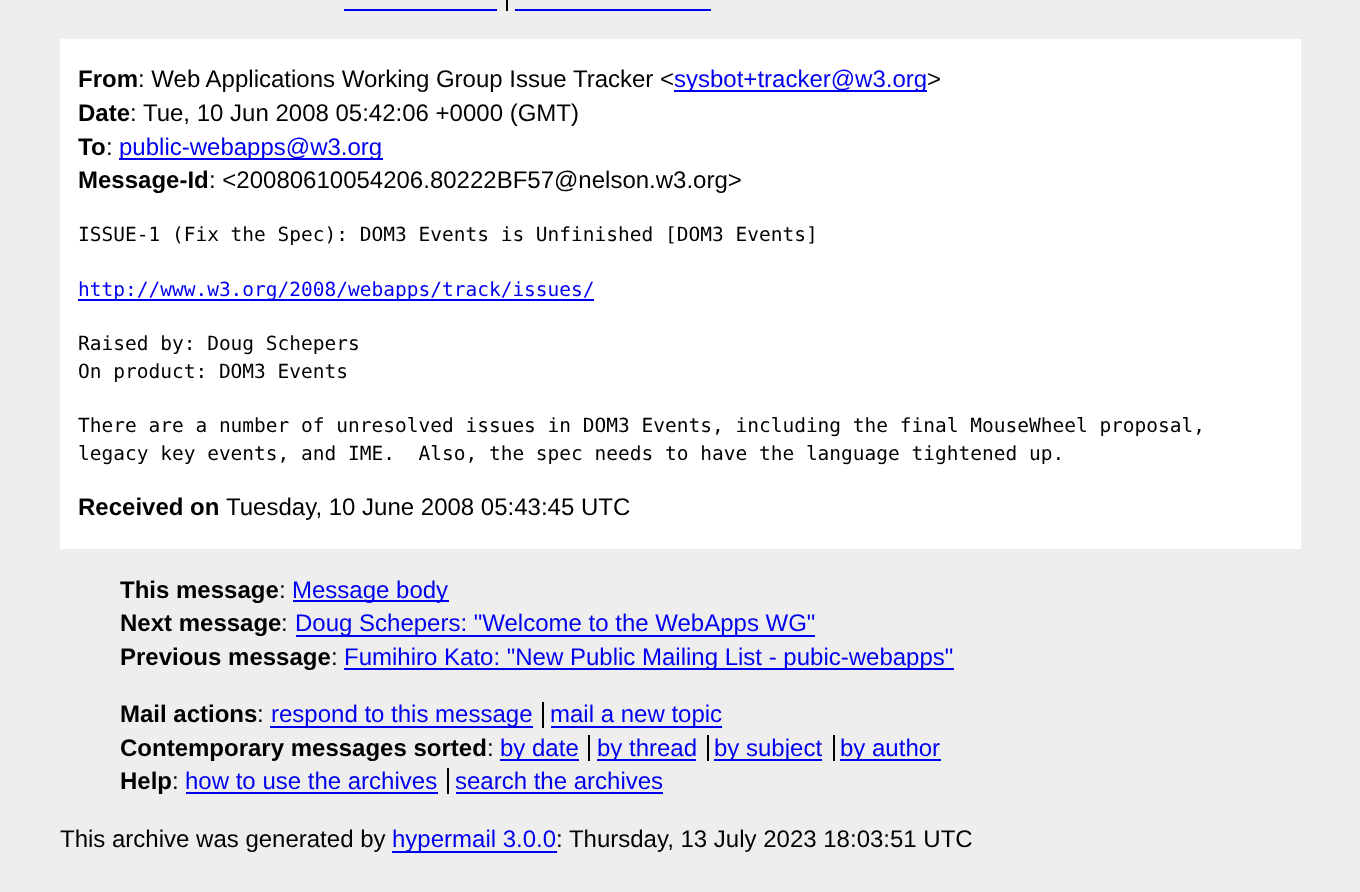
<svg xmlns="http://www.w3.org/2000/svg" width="1360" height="892">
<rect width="100%" height="100%" fill="#eee"/>
<rect x="344" y="9" width="153" height="2" fill="#00e"/>
<rect x="506" width="2" height="11" fill="#000"/>
<rect x="515" y="9" width="196" height="2" fill="#00e"/>
<rect x="60" y="39" width="1241" height="510" fill="#fff"/>
<text x="78" y="87" style="font-family:Liberation Sans;font-size:24px;font-weight:bold;fill:#000">From</text>
<text x="138" y="87" style="font-family:Liberation Sans;font-size:24px;fill:#000">: Web Applications Working Group Issue Tracker &lt;</text>
<rect x="674" y="90" width="253" height="2" fill="#00e"/>
<text x="674" y="87" style="font-family:Liberation Sans;font-size:24px;fill:#00e">sysbot+tracker@w3.org</text>
<text x="927" y="87" style="font-family:Liberation Sans;font-size:24px;fill:#000">&gt;</text>
<text x="78" y="121" style="font-family:Liberation Sans;font-size:24px;font-weight:bold;fill:#000">Date</text>
<text x="130" y="121" style="font-family:Liberation Sans;font-size:24px;fill:#000">: Tue, 10 Jun 2008 05:42:06 +0000 (GMT)</text>
<text x="78" y="155" style="font-family:Liberation Sans;font-size:24px;font-weight:bold;fill:#000">To</text>
<text x="106" y="155" style="font-family:Liberation Sans;font-size:24px;fill:#000">:</text>
<rect x="119" y="158" width="264" height="2" fill="#00e"/>
<text x="119" y="155" style="font-family:Liberation Sans;font-size:24px;fill:#00e">public-webapps@w3.org</text>
<text x="78" y="188" style="font-family:Liberation Sans;font-size:24px;font-weight:bold;fill:#000">Message-Id</text>
<text x="209" y="188" style="font-family:Liberation Sans;font-size:24px;fill:#000">: &lt;20080610054206.80222BF57@nelson.w3.org&gt;</text>
<text x="78" y="241" style="font-family:DejaVu Sans Mono;font-size:19.5px;fill:#000">ISSUE-1 (Fix the Spec): DOM3 Events is Unfinished [DOM3 Events]</text>
<rect x="78" y="299" width="516" height="2" fill="#00e"/>
<text x="78" y="296" style="font-family:DejaVu Sans Mono;font-size:19.5px;fill:#00e">http://www.w3.org/2008/webapps/track/issues/</text>
<text x="78" y="350" style="font-family:DejaVu Sans Mono;font-size:19.5px;fill:#000">Raised by: Doug Schepers</text>
<text x="78" y="378" style="font-family:DejaVu Sans Mono;font-size:19.5px;fill:#000">On product: DOM3 Events</text>
<text x="78" y="432" style="font-family:DejaVu Sans Mono;font-size:19.5px;fill:#000">There are a number of unresolved issues in DOM3 Events, including the final MouseWheel proposal,</text>
<text x="78" y="460" style="font-family:DejaVu Sans Mono;font-size:19.5px;fill:#000" xml:space="preserve">legacy key events, and IME.  Also, the spec needs to have the language tightened up.</text>
<text x="78" y="515" style="font-family:Liberation Sans;font-size:24px;font-weight:bold;fill:#000">Received on</text>
<text x="226" y="515" style="font-family:Liberation Sans;font-size:24px;fill:#000">Tuesday, 10 June 2008 05:43:45 UTC</text>
<text x="120" y="598" style="font-family:Liberation Sans;font-size:24px;font-weight:bold;fill:#000">This message</text>
<text x="279" y="598" style="font-family:Liberation Sans;font-size:24px;fill:#000">:</text>
<rect x="293" y="600" width="156" height="2" fill="#00e"/>
<text x="292" y="598" style="font-family:Liberation Sans;font-size:24px;fill:#00e">Message body</text>
<text x="120" y="631" style="font-family:Liberation Sans;font-size:24px;font-weight:bold;fill:#000">Next message</text>
<text x="281" y="631" style="font-family:Liberation Sans;font-size:24px;fill:#000">:</text>
<rect x="296" y="635" width="519" height="2" fill="#00e"/>
<text x="295" y="631" style="font-family:Liberation Sans;font-size:24px;fill:#00e">Doug Schepers: "Welcome to the WebApps WG"</text>
<text x="120" y="665" style="font-family:Liberation Sans;font-size:24px;font-weight:bold;fill:#000">Previous message</text>
<text x="331" y="665" style="font-family:Liberation Sans;font-size:24px;fill:#000">:</text>
<rect x="344" y="668" width="610" height="2" fill="#00e"/>
<text x="344" y="665" style="font-family:Liberation Sans;font-size:24px;fill:#00e">Fumihiro Kato: "New Public Mailing List - pubic-webapps"</text>
<text x="120" y="722" style="font-family:Liberation Sans;font-size:24px;font-weight:bold;fill:#000">Mail actions</text>
<text x="257" y="722" style="font-family:Liberation Sans;font-size:24px;fill:#000">:</text>
<rect x="270" y="726" width="263" height="2" fill="#00e"/>
<text x="271" y="722" style="font-family:Liberation Sans;font-size:24px;fill:#00e">respond to this message</text>
<rect x="551" y="726" width="171" height="2" fill="#00e"/>
<text x="550" y="722" style="font-family:Liberation Sans;font-size:24px;fill:#00e">mail a new topic</text>
<rect x="542" y="702" width="2" height="26" fill="#000"/>
<text x="120" y="756" style="font-family:Liberation Sans;font-size:24px;font-weight:bold;fill:#000">Contemporary messages sorted</text>
<text x="487" y="756" style="font-family:Liberation Sans;font-size:24px;fill:#000">:</text>
<rect x="500" y="759" width="79" height="2" fill="#00e"/>
<text x="500" y="756" style="font-family:Liberation Sans;font-size:24px;fill:#00e">by date</text>
<rect x="597" y="759" width="99" height="2" fill="#00e"/>
<text x="597" y="756" style="font-family:Liberation Sans;font-size:24px;fill:#00e">by thread</text>
<rect x="588" y="735" width="2" height="26" fill="#000"/>
<rect x="714" y="759" width="108" height="2" fill="#00e"/>
<text x="714" y="756" style="font-family:Liberation Sans;font-size:24px;fill:#00e">by subject</text>
<rect x="707" y="735" width="2" height="26" fill="#000"/>
<rect x="840" y="759" width="101" height="2" fill="#00e"/>
<text x="840" y="756" style="font-family:Liberation Sans;font-size:24px;fill:#00e">by author</text>
<rect x="833" y="735" width="2" height="26" fill="#000"/>
<text x="120" y="789" style="font-family:Liberation Sans;font-size:24px;font-weight:bold;fill:#000">Help</text>
<text x="172" y="789" style="font-family:Liberation Sans;font-size:24px;fill:#000">:</text>
<text x="185" y="789" style="font-family:Liberation Sans;font-size:24px;fill:#00e">how to use the archives</text>
<rect x="186" y="792" width="252" height="2" fill="#00e"/>
<text x="455" y="789" style="font-family:Liberation Sans;font-size:24px;fill:#00e">search the archives</text>
<rect x="447" y="768" width="2" height="26" fill="#000"/>
<rect x="456" y="792" width="207" height="2" fill="#00e"/>
<text x="60" y="847" style="font-family:Liberation Sans;font-size:24px;fill:#000">This archive was generated by</text>
<rect x="392" y="851" width="165" height="2" fill="#00e"/>
<text x="392" y="847" style="font-family:Liberation Sans;font-size:24px;fill:#00e">hypermail 3.0.0</text>
<text x="556" y="847" style="font-family:Liberation Sans;font-size:24px;fill:#000">: Thursday, 13 July 2023 18:03:51 UTC</text>
</svg>
